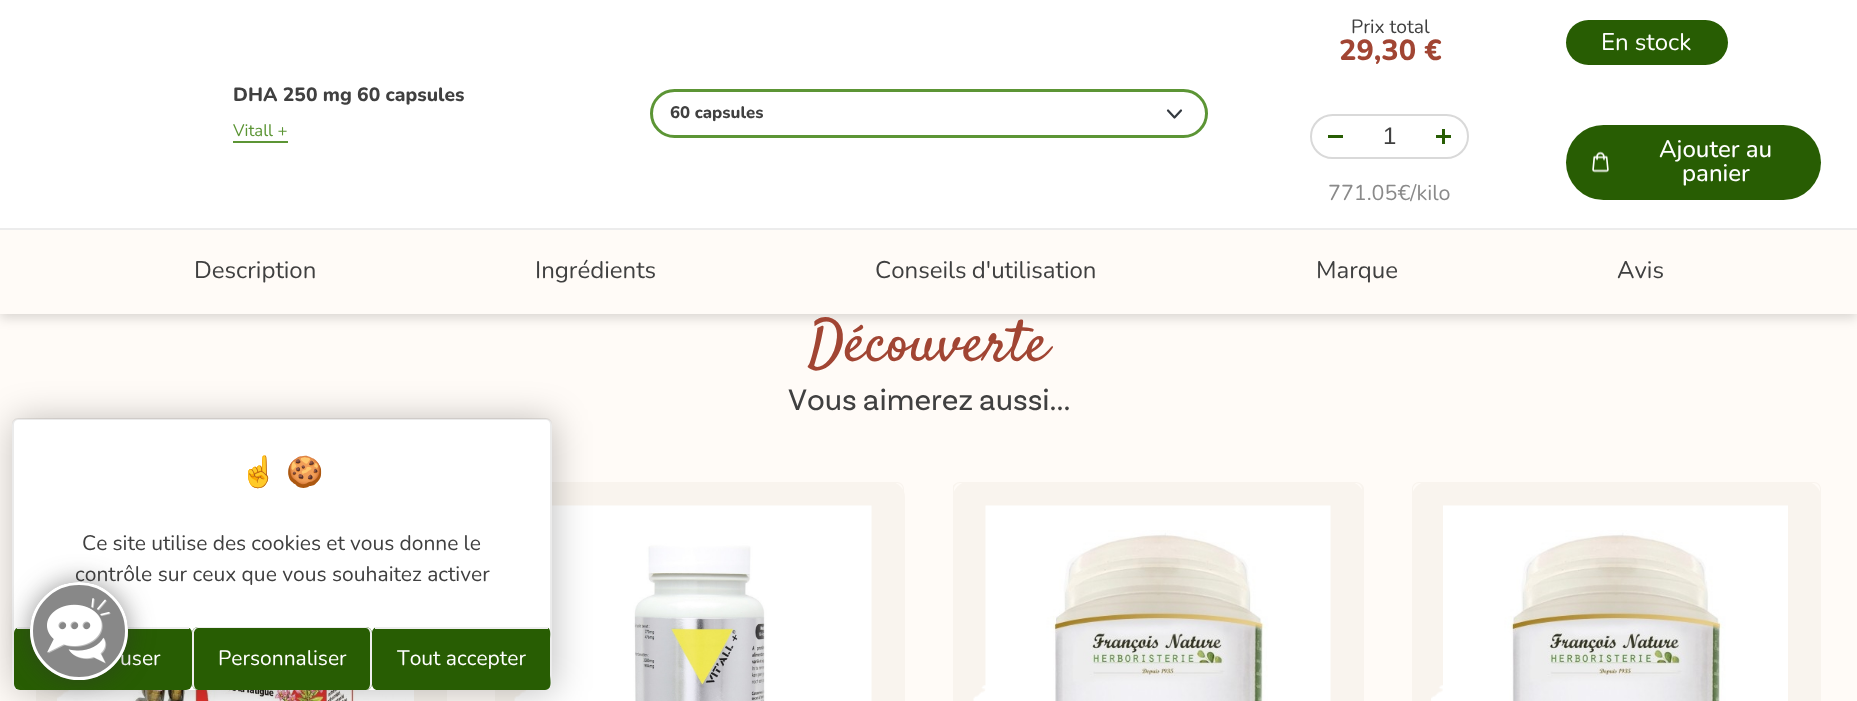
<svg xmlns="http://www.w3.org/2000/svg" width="1857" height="701">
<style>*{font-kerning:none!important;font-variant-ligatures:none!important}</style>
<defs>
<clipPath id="clip1"><rect x="953" y="482" width="411" height="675"/></clipPath>
</defs>
<rect width="100%" height="100%" fill="#fffbf7"/>
<rect y="5" width="1857" height="313" fill="#00000026" filter="blur(6px)"/>
<rect width="1857" height="228" fill="#fff"/>
<text x="233" y="101" style="font-family:Nunito;font-size:19.25px;font-weight:800;fill:#404040">DHA 250 mg 60 capsules</text>
<text x="233" y="136" style="font-family:Nunito;font-size:16.75px;fill:#5c9535">Vitall +</text>
<rect x="233" y="141" width="55" height="2" fill="#5c9535"/>
<path d="M1168 110.5l6.5 7l6.5-7" fill="none" stroke="#343a40" stroke-width="2.2" stroke-linecap="round" stroke-linejoin="round"/>
<rect x="651.5" y="90.5" width="555" height="46" rx="23" fill="none" stroke="#5c9535" stroke-width="3"/>
<text x="670" y="118" style="font-family:Nunito;font-size:16.75px;font-weight:800;fill:#404040">60 capsules</text>
<text x="1351" y="33" style="font-family:Nunito;font-size:19.25px;fill:#404040">Prix total</text>
<text x="1339" y="60" style="font-family:Nunito;font-size:29px;font-weight:800;fill:#a14533">29,30 €</text>
<rect x="1566" y="20" width="162" height="45" rx="22.5" fill="#285d03"/>
<text x="1601" y="50" style="font-family:Nunito;font-size:24px;fill:#fff">En stock</text>
<rect x="1311" y="115" width="157" height="43" rx="21.5" fill="none" stroke="#d9d9d9" stroke-width="2"/>
<rect x="1328" y="135" width="15" height="3" fill="#285d03"/>
<text x="1383" y="144" style="font-family:Liberation Sans;font-size:24px;fill:#404040">1</text>
<rect x="1436" y="135" width="15" height="3" fill="#285d03"/>
<rect x="1442" y="129" width="3" height="15" fill="#285d03"/>
<text x="1328" y="200" style="font-family:Nunito;font-size:21.5px;fill:#8a8a8a">771.05€/kilo</text>
<rect x="1566" y="125" width="255" height="75" rx="37.5" fill="#285d03"/>
<image x="1592" y="151" width="17" height="22" href="media/1.png"/>
<text x="1659" y="157" style="font-family:Nunito;font-size:24px;font-weight:500;fill:#fff">Ajouter au</text>
<text x="1682" y="181" style="font-family:Nunito;font-size:24px;font-weight:500;fill:#fff">panier</text>
<rect y="230" width="1857" height="84" fill="#fffbf7"/>
<rect y="228" width="1857" height="2" fill="#ececec"/>
<text x="194" y="278" style="font-family:Nunito;font-size:24px;fill:#404040">Description</text>
<text x="535" y="278" style="font-family:Nunito;font-size:24px;fill:#404040">Ingrédients</text>
<text x="875" y="278" word-spacing="-1" style="font-family:Nunito;font-size:24px;fill:#404040">Conseils d'utilisation</text>
<text x="1316" y="278" style="font-family:Nunito;font-size:24px;fill:#404040">Marque</text>
<text x="1617" y="278" style="font-family:Nunito;font-size:24px;fill:#404040">Avis</text>
<text x="808" y="360" style="font-family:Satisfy;font-size:58.5px;fill:#a14533">Découverte</text>
<text x="788" y="410" word-spacing="-1" style="font-family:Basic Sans;font-size:31.25px;fill:#404040">Vous aimerez aussi...</text>
<rect x="38" y="690" width="408" height="11" fill="#f9f4ee"/>
<image x="57" y="690" width="12" height="11" href="media/2.png"/>
<path d="M44 482h396c4 0 7 3 7 7v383h-411v-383c0-4 3-7 8-7zm0 1h396c3 0 6 3 6 6v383h-408v-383c0-3 2-6 6-6z" fill="#f9f4ee" fill-rule="evenodd"/>
<image x="69" y="690" width="345" height="11" href="media/3.png"/>
<rect x="495" y="482" width="410" height="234" rx="15" fill="#f9f4ee"/>
<image x="514" y="690" width="13" height="11" href="media/4.png"/>
<path d="M502 482h395c4 0 7 3 7 7v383h-409v-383c0-4 3-7 7-7zm0 1h395c3 0 6 3 6 6v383h-407v-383c0-3 3-6 6-6z" fill="#f9f4ee" fill-rule="evenodd"/>
<image x="526" y="505" width="346" height="196" href="media/5.png"/>
<rect x="953" y="482" width="411" height="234" rx="15" fill="#f9f4ee"/>
<image x="973" y="684" width="13" height="17" href="media/6.png"/>
<g clip-path="url(#clip1)">
<path d="M960 482h396c4 0 8 3 8 7v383h-412v-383c0-4 4-7 8-7zm0 1h396c3 0 6 3 6 6v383h-408v-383c0-3 3-6 6-6z" fill="#f9f4ee" fill-rule="evenodd"/>
</g>
<image x="985" y="505" width="346" height="196" href="media/7.png"/>
<rect x="1412" y="482" width="409" height="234" rx="15" fill="#f9f4ee"/>
<image x="1431" y="684" width="12" height="17" href="media/8.png"/>
<path d="M1419 482h395c4 0 7 3 7 7v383h-409v-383c0-4 3-7 7-7zm0 1h395c3 0 6 3 6 6v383h-407v-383c0-3 3-6 6-6z" fill="#f9f4ee" fill-rule="evenodd"/>
<image x="1443" y="505" width="345" height="196" href="media/9.png"/>
<rect x="14" y="420" width="540" height="272" rx="6" fill="#00000040" filter="blur(18px)"/>
<rect x="12" y="419" width="540" height="271" rx="6" fill="#fff"/>
<path d="M18 418h528c3 0 6 3 6 6v260c0 3-3 6-6 6h-528c-3 0-6-3-6-6v-260c0-3 3-6 6-6zm0 2h528c2 0 4 2 4 4v260c0 3-2 6-4 6h-528c-2 0-4-3-4-6v-260c0-2 2-4 4-4z" fill="#00000014" fill-rule="evenodd"/>
<text x="240" y="482" style="font-family:Noto Color Emoji;font-size:30px;font-weight:bold;fill:#333">☝️</text>
<text x="286" y="482" style="font-family:Noto Color Emoji;font-size:30px;font-weight:bold;fill:#333">🍪</text>
<text x="82" y="550" word-spacing="-0.25" style="font-family:Nunito;font-size:21px;fill:#404040">Ce site utilise des cookies et vous donne le</text>
<text x="75" y="581" style="font-family:Nunito;font-size:21px;fill:#404040">contrôle sur ceux que vous souhaitez activer</text>
<rect x="14" y="627" width="178" height="63" rx="6" fill="#285d03"/>
<rect x="17" y="627" width="172" height="2" fill="#eee"/>
<text x="120" y="665" style="font-family:Nunito;font-size:21px;fill:#fff">user</text>
<path d="M378 627c-8 0-6 10-6 15v34c0 4-2 14 6 14h167c8 0 5-11 5-15v-36c0-4 2-12-5-12z" fill="#285d03"/>
<rect x="192" y="627" width="180" height="63" rx="6" fill="#285d03"/>
<path d="M198 627h168c3 0 6 3 6 6v51c0 3-3 6-6 6h-168c-3 0-6-3-6-6v-51c0-3 3-6 6-6zm0 1h168c2 0 4 3 4 5v51c0 3-2 6-4 6h-168c-2 0-4-3-4-6v-51c0-2 2-5 4-5z" fill="#eee" fill-rule="evenodd"/>
<text x="218" y="665" style="font-family:Nunito;font-size:21px;fill:#fff">Personnaliser</text>
<rect x="375" y="627" width="173" height="2" fill="#eee"/>
<text x="397" y="665" style="font-family:Nunito;font-size:21px;fill:#fff">Tout accepter</text>
<rect x="30" y="582" width="98" height="98" rx="49" fill="#32323280" filter="blur(13px)"/>
<circle cx="79" cy="631" r="49" fill="#888"/>
<image x="47" y="598" width="64" height="66" href="media/10.png"/>
<circle cx="79" cy="631" r="47.5" fill="none" stroke="#fff" stroke-width="3"/>
</svg>
